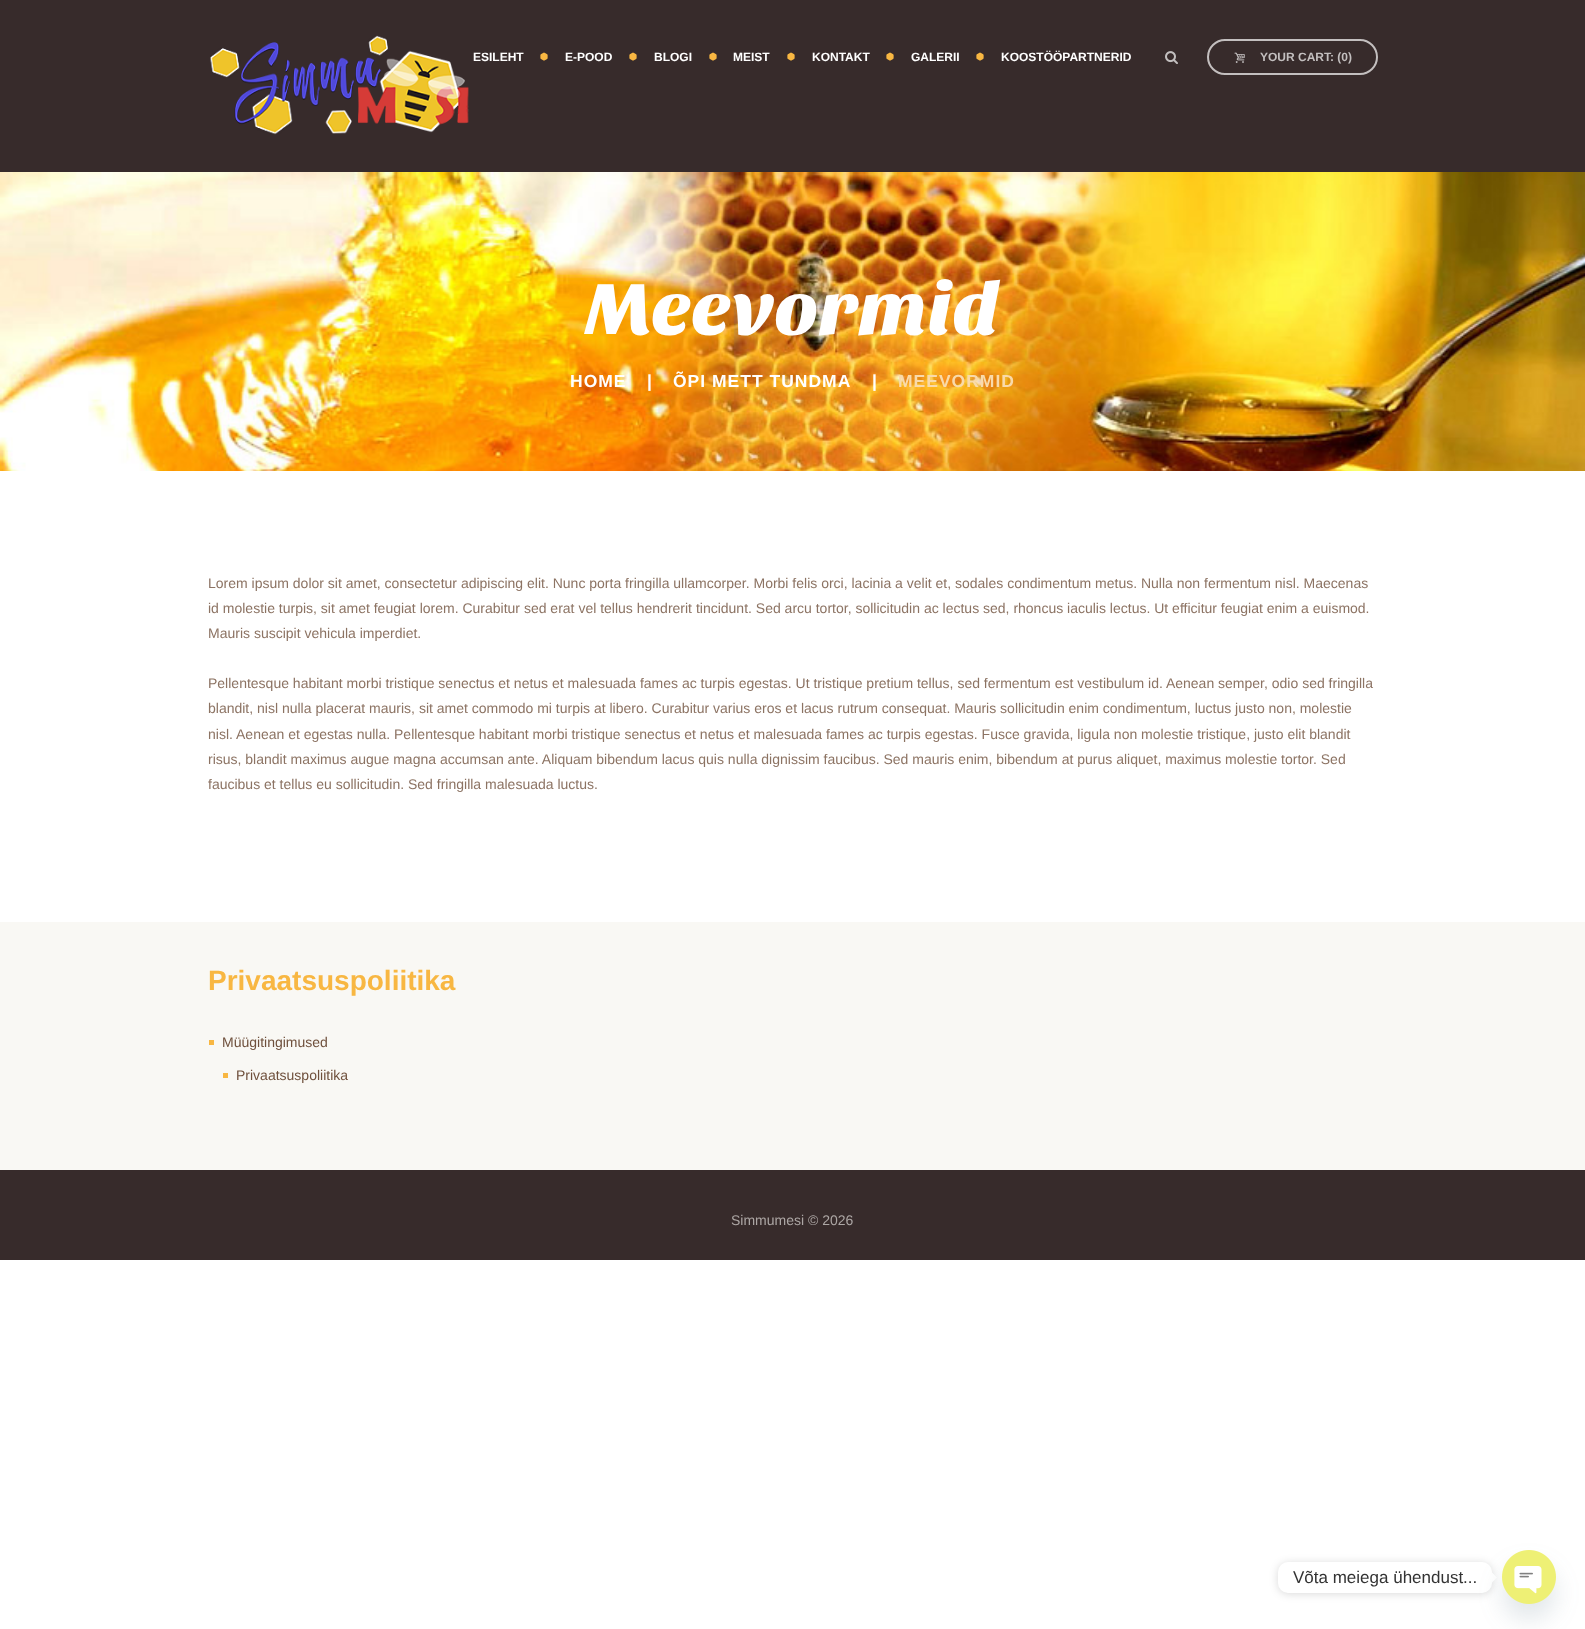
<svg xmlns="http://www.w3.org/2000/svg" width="1585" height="1629">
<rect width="100%" height="100%" fill="#fff"/>
<rect width="1585" height="172" fill="#372b2b"/>
<image x="210" y="35" width="259" height="100" href="media/1.png"/>
<text x="473" y="61" style="font-family:Arimo;font-size:12px;font-weight:bold;fill:#fff">ESILEHT</text>
<image x="540" y="52" width="8" height="9" href="media/2.png"/>
<text x="565" y="61" style="font-family:Arimo;font-size:12px;font-weight:bold;fill:#fff">E-POOD</text>
<image x="629" y="52" width="8" height="9" href="media/2.png"/>
<text x="654" y="61" style="font-family:Arimo;font-size:12px;font-weight:bold;fill:#fff">BLOGI</text>
<image x="709" y="52" width="8" height="9" href="media/2.png"/>
<text x="733" y="61" style="font-family:Arimo;font-size:12px;font-weight:bold;fill:#fff">MEIST</text>
<image x="787" y="52" width="8" height="9" href="media/2.png"/>
<text x="812" y="61" style="font-family:Arimo;font-size:12px;font-weight:bold;fill:#fff">KONTAKT</text>
<image x="886" y="52" width="8" height="9" href="media/2.png"/>
<text x="911" y="61" style="font-family:Arimo;font-size:12px;font-weight:bold;fill:#fff">GALERII</text>
<image x="976" y="52" width="8" height="9" href="media/2.png"/>
<text x="1001" y="61" style="font-family:Arimo;font-size:12px;font-weight:bold;fill:#fff">KOOSTÖÖPARTNERID</text>
<image x="1165" y="51" width="13" height="13" href="media/3.png"/>
<rect x="1208" y="40" width="169" height="34" rx="17" fill="none" stroke="#c3bfbf" stroke-width="2"/>
<image x="1234" y="52" width="11" height="11" href="media/4.png"/>
<text x="1260" y="61" style="font-family:Arimo;font-size:12px;font-weight:bold;fill:#c3bfbf">YOUR CART: (0)</text>
<image x="0" y="172" width="1585" height="299" href="media/5.png"/>
<text x="585" y="334" style="font-family:Sansita One;font-size:75.5px;fill:#fff">Meevormid</text>
<text x="570" y="387" style="font-family:Arimo;font-size:17.5px;font-weight:bold;letter-spacing:1px;fill:#fff">HOME</text>
<text x="647" y="387" style="font-family:Arimo;font-size:17.5px;font-weight:bold;letter-spacing:1px;fill:#fff">|</text>
<text x="673" y="387" style="font-family:Arimo;font-size:17.5px;font-weight:bold;letter-spacing:1px;fill:#fff">ÕPI METT TUNDMA</text>
<text x="872" y="387" style="font-family:Arimo;font-size:17.5px;font-weight:bold;letter-spacing:1px;fill:#fff">|</text>
<text x="898" y="387" style="font-family:Arimo;font-size:17.5px;font-weight:bold;letter-spacing:1px;fill:#f9daaa">MEEVORMID</text>
<text x="208" y="588" style="font-family:Arimo;font-size:14px;fill:#8c7363">Lorem ipsum dolor sit amet, consectetur adipiscing elit. Nunc porta fringilla ullamcorper. Morbi felis orci, lacinia a velit et, sodales condimentum metus. Nulla non fermentum nisl. Maecenas</text>
<text x="208" y="613" style="font-family:Arimo;font-size:14px;fill:#8c7363">id molestie turpis, sit amet feugiat lorem. Curabitur sed erat vel tellus hendrerit tincidunt. Sed arcu tortor, sollicitudin ac lectus sed, rhoncus iaculis lectus. Ut efficitur feugiat enim a euismod.</text>
<text x="208" y="638" style="font-family:Arimo;font-size:14px;fill:#8c7363">Mauris suscipit vehicula imperdiet.</text>
<text x="208" y="688" style="font-family:Arimo;font-size:14px;fill:#8c7363">Pellentesque habitant morbi tristique senectus et netus et malesuada fames ac turpis egestas. Ut tristique pretium tellus, sed fermentum est vestibulum id. Aenean semper, odio sed fringilla</text>
<text x="208" y="713" style="font-family:Arimo;font-size:14px;fill:#8c7363">blandit, nisl nulla placerat mauris, sit amet commodo mi turpis at libero. Curabitur varius eros et lacus rutrum consequat. Mauris sollicitudin enim condimentum, luctus justo non, molestie</text>
<text x="208" y="739" style="font-family:Arimo;font-size:14px;fill:#8c7363">nisl. Aenean et egestas nulla. Pellentesque habitant morbi tristique senectus et netus et malesuada fames ac turpis egestas. Fusce gravida, ligula non molestie tristique, justo elit blandit</text>
<text x="208" y="764" style="font-family:Arimo;font-size:14px;fill:#8c7363">risus, blandit maximus augue magna accumsan ante. Aliquam bibendum lacus quis nulla dignissim faucibus. Sed mauris enim, bibendum at purus aliquet, maximus molestie tortor. Sed</text>
<text x="208" y="789" style="font-family:Arimo;font-size:14px;fill:#8c7363">faucibus et tellus eu sollicitudin. Sed fringilla malesuada luctus.</text>
<rect y="922" width="1585" height="248" fill="#f9f8f4"/>
<text x="208" y="990" style="font-family:Arimo;font-size:28px;font-weight:bold;fill:#f8b742">Privaatsuspoliitika</text>
<rect x="209" y="1040" width="5" height="5" fill="#f8b742"/>
<text x="222" y="1047" style="font-family:Arimo;font-size:14px;fill:#6f503c">Müügitingimused</text>
<rect x="223" y="1073" width="5" height="5" fill="#f8b742"/>
<text x="236" y="1080" style="font-family:Arimo;font-size:14px;fill:#6f503c">Privaatsuspoliitika</text>
<rect y="1170" width="1585" height="90" fill="#372b2b"/>
<text x="731" y="1225" style="font-family:Arimo;font-size:14px;fill:#ada7a5">Simmumesi © 2026</text>
<rect x="1278" y="1563" width="214" height="31" rx="10" fill="#00000026" filter="blur(4px)"/>
<rect x="1278" y="1562" width="214" height="31" rx="10" fill="#fff"/>
<text x="1293" y="1583" style="font-family:Arimo;font-size:17px;fill:#333">Võta meiega ühendust...</text>
<path d="M1492 1582.5v-10l5 5z" fill="#fff"/>
<rect x="1502" y="1566" width="54" height="54" rx="27" fill="#49687e29" filter="blur(12px)"/>
<image x="1502" y="1550" width="54" height="54" href="media/6.png"/>
</svg>
